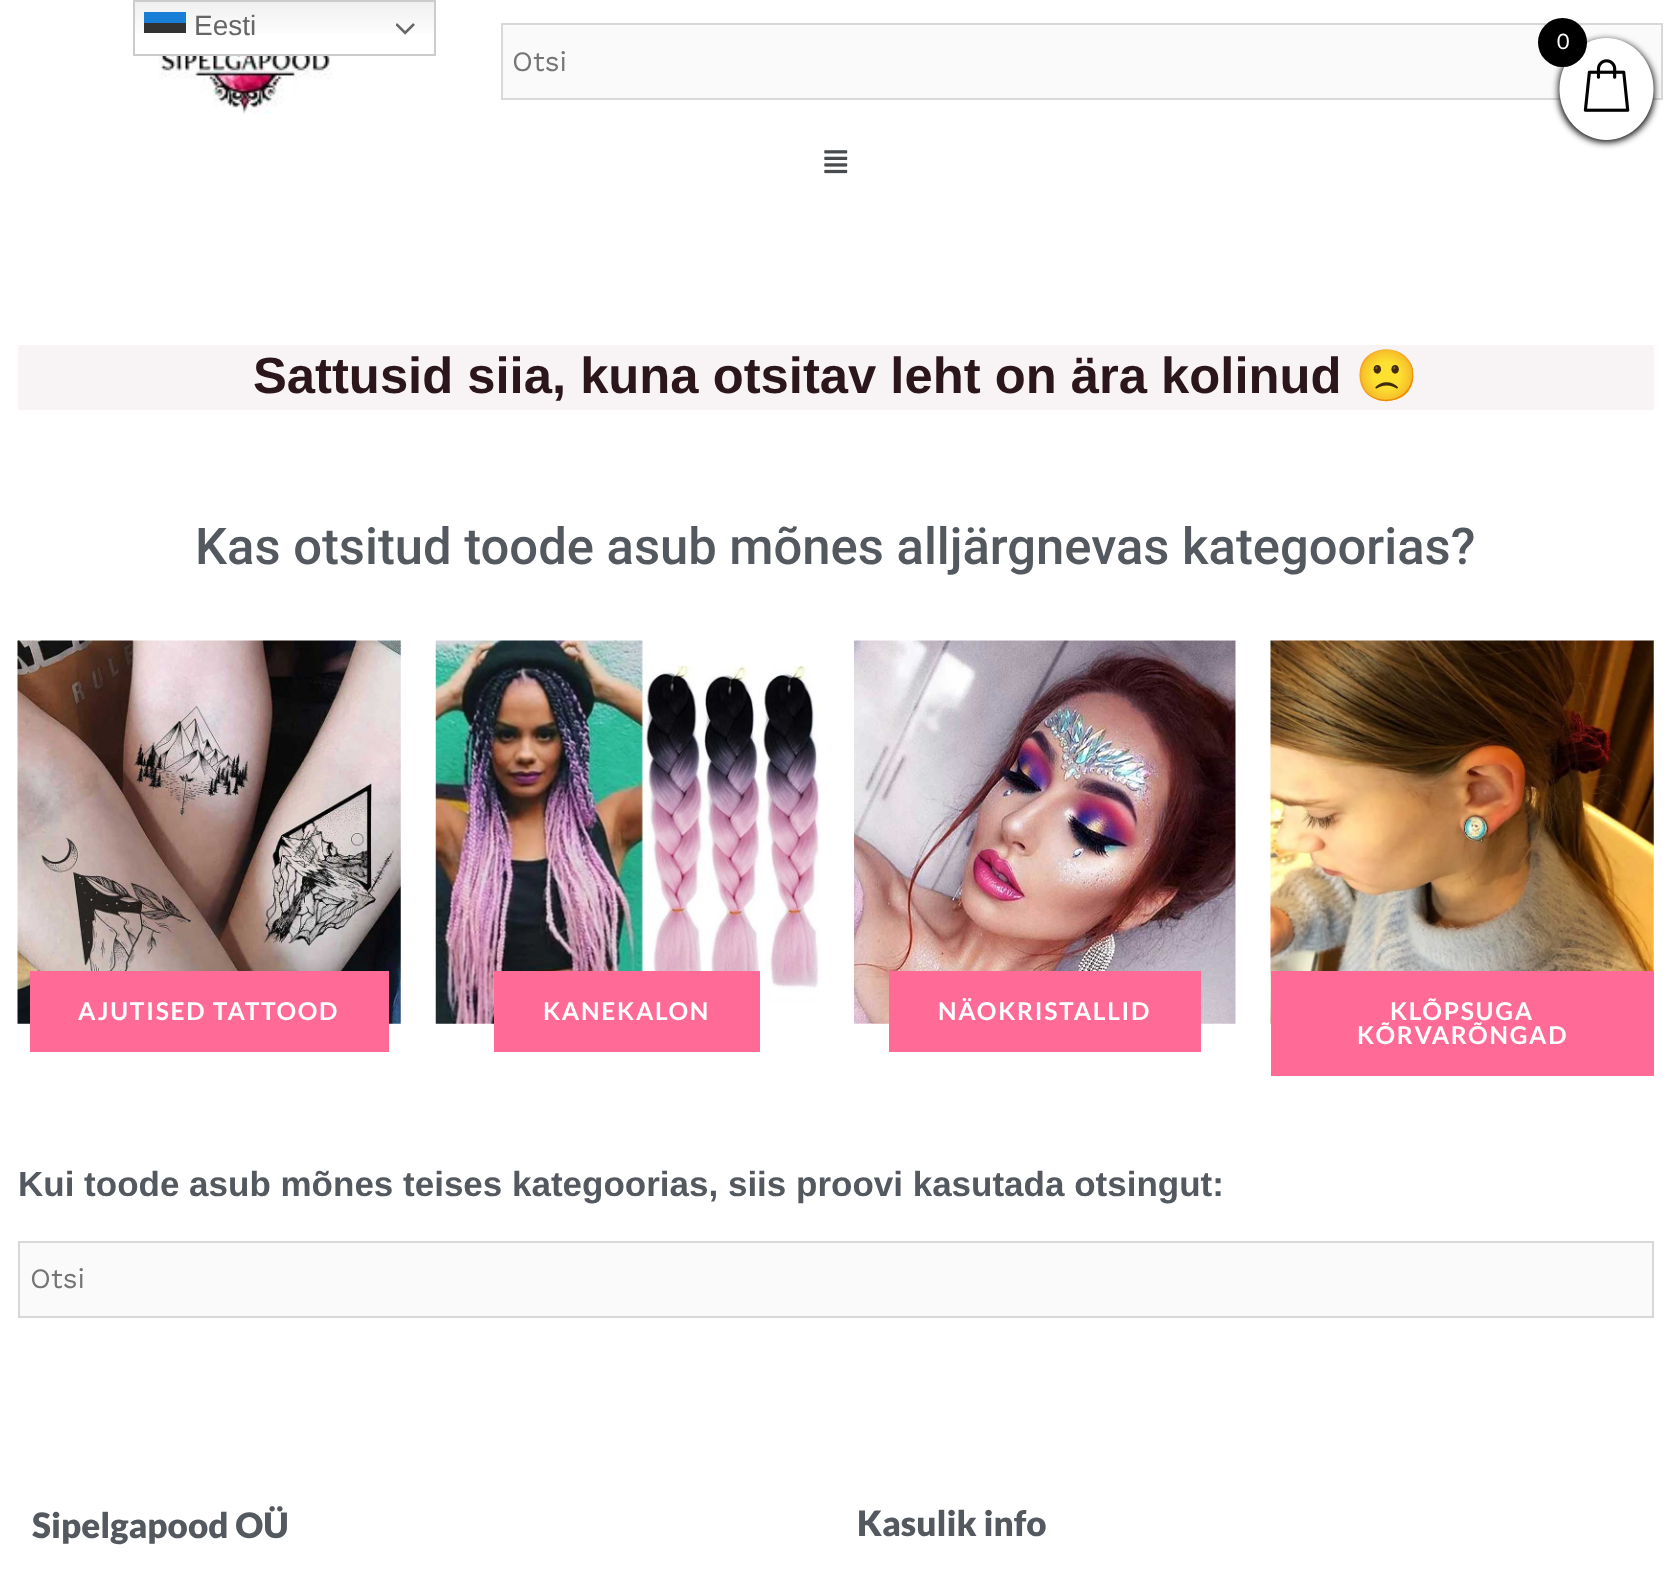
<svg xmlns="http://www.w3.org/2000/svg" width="1670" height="1578">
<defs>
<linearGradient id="g1" gradientUnits="userSpaceOnUse" x1="284" y1="0" x2="284" y2="56"><stop offset="0" stop-color="#efefef"/><stop offset="0.7" stop-color="#fff"/></linearGradient>
</defs>
<rect width="100%" height="100%" fill="#fff"/>
<rect x="135" y="2" width="299" height="31" fill="url(#g1)"/>
<rect x="134" y="1" width="301" height="54" fill="none" stroke="#ccc" stroke-width="2"/>
<rect x="144" y="12" width="42" height="11" fill="#187ed6"/>
<text x="194" y="35" style="font-family:Liberation Sans;font-size:28px;fill:#666">Eesti</text>
<rect x="144" y="23" width="42" height="10" fill="#000000cc"/>
<image x="396" y="23" width="19" height="12" href="media/1.png"/>
<rect x="502" y="24" width="1160" height="75" fill="#fafafa" stroke="#d8d8d8" stroke-width="2"/>
<rect x="1559" y="40" width="95" height="102" rx="47.5" fill="#000" filter="blur(3.5px)"/>
<ellipse cx="1606.5" cy="89" rx="47" ry="51" fill="#fff"/>
<circle cx="1562.5" cy="42.5" r="24.5" fill="#000"/>
<text x="1556" y="49" style="font-family:Work Sans;font-size:23px;fill:#fff">0</text>
<image x="1583" y="59" width="47" height="53" href="media/2.png"/>
<image x="158" y="56" width="175" height="58" href="media/3.png"/>
<text x="512" y="71" style="font-family:Work Sans;font-size:28px;fill:#757575">Otsi</text>
<image x="824" y="150" width="24" height="24" href="media/4.png"/>
<rect x="18" y="345" width="1636" height="65" fill="#f8f3f5"/>
<text x="253" y="393" style="font-family:Liberation Sans;font-size:50.75px;font-weight:bold;fill:#2b161b">Sattusid siia, kuna otsitav leht on ära kolinud</text>
<text x="1355" y="393" style="font-family:Noto Color Emoji;font-size:50.75px;font-weight:bold;fill:#2b161b">🙁</text>
<text x="195" y="564" style="font-family:Roboto;font-size:50.75px;font-weight:500;fill:#54595f">Kas otsitud toode asub mõnes alljärgnevas kategoorias?</text>
<image x="17" y="640" width="384" height="384" href="media/5.png"/>
<rect x="30" y="971" width="359" height="81" fill="#ff6a97"/>
<text x="78" y="1020" style="font-family:Lato;font-size:24.5px;font-weight:bold;letter-spacing:1.75px;fill:#fff">AJUTISED TATTOOD</text>
<image x="435" y="640" width="384" height="384" href="media/6.png"/>
<rect x="494" y="971" width="266" height="81" fill="#ff6a97"/>
<text x="543" y="1020" style="font-family:Lato;font-size:24.5px;font-weight:bold;letter-spacing:1.75px;fill:#fff">KANEKALON</text>
<image x="854" y="640" width="382" height="384" href="media/7.png"/>
<rect x="889" y="971" width="312" height="81" fill="#ff6a97"/>
<text x="938" y="1020" style="font-family:Lato;font-size:24.5px;font-weight:bold;letter-spacing:1.75px;fill:#fff">NÄOKRISTALLID</text>
<image x="1270" y="640" width="384" height="384" href="media/8.png"/>
<rect x="1271" y="971" width="383" height="105" fill="#ff6a97"/>
<text x="1390" y="1020" style="font-family:Lato;font-size:24.5px;font-weight:bold;letter-spacing:1.75px;fill:#fff">KLÕPSUGA</text>
<text x="1357" y="1044" style="font-family:Lato;font-size:24.5px;font-weight:bold;letter-spacing:1.75px;fill:#fff">KÕRVARÕNGAD</text>
<text x="18" y="1196" style="font-family:Liberation Sans;font-size:35px;font-weight:bold;fill:#54595f">Kui toode asub mõnes teises kategoorias, siis proovi kasutada otsingut:</text>
<rect x="19" y="1242" width="1634" height="75" fill="#fafafa" stroke="#d8d8d8" stroke-width="2"/>
<text x="30" y="1288" style="font-family:Work Sans;font-size:28px;fill:#757575">Otsi</text>
<text x="32" y="1538" style="font-family:Lato;font-size:35px;font-weight:900;fill:#54595f">Sipelgapood OÜ</text>
<text x="857" y="1536" style="font-family:Lato;font-size:35px;font-weight:900;fill:#54595f">Kasulik info</text>
</svg>
